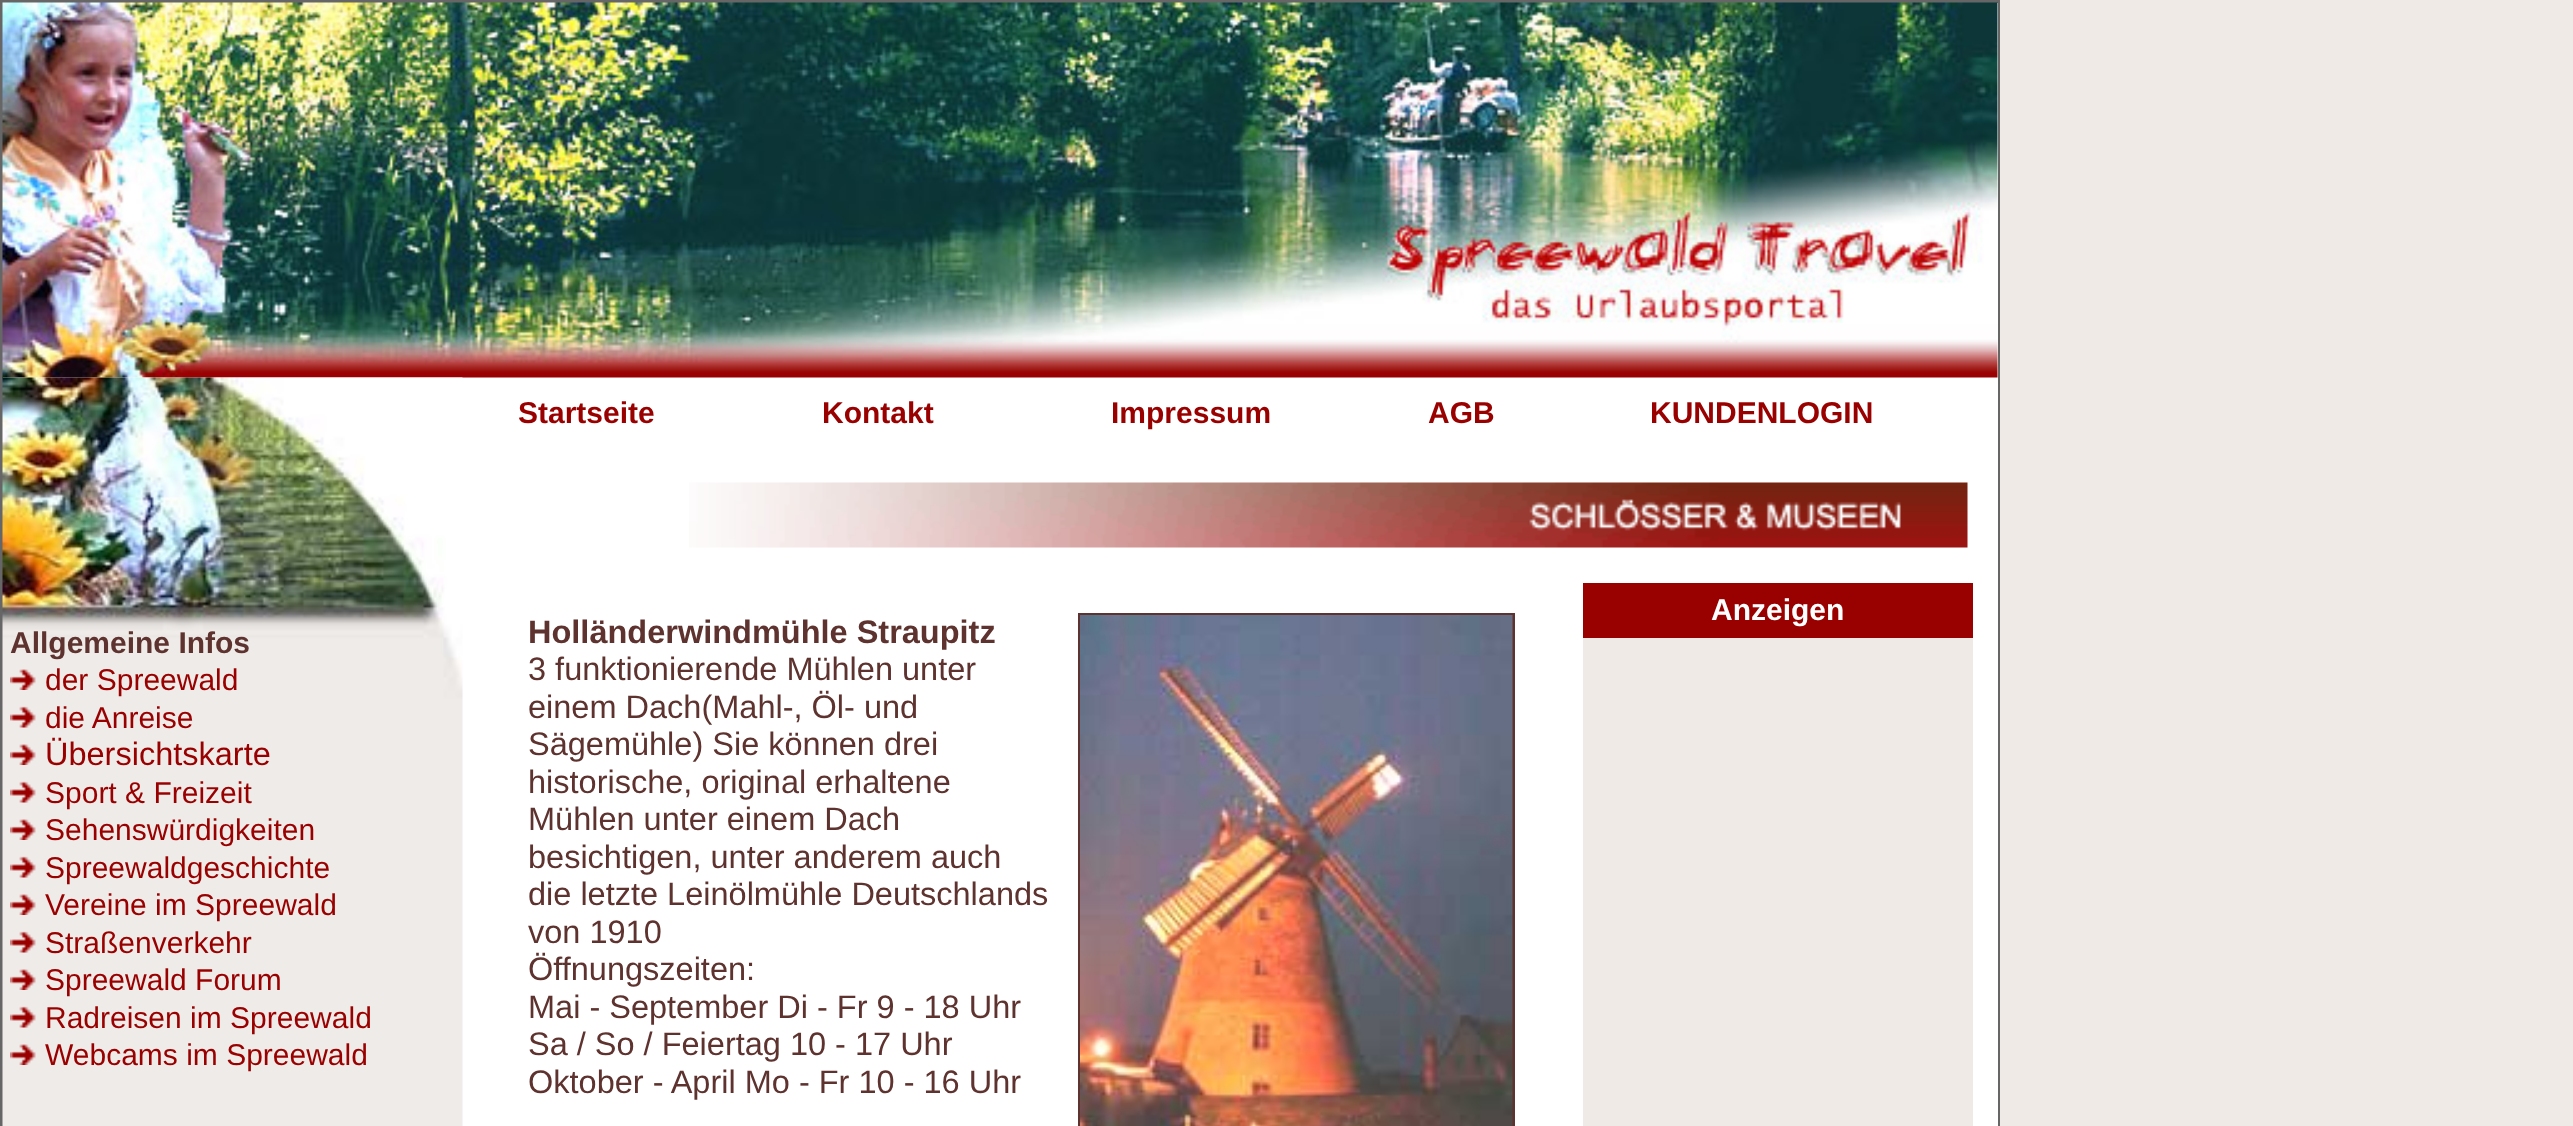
<svg xmlns="http://www.w3.org/2000/svg" width="2573" height="1126">
<rect width="100%" height="100%" fill="#efeae6"/>
<rect width="2000" height="1126" fill="#666"/>
<rect x="3" y="3" width="1995" height="375" fill="#fff"/>
<image x="2" y="2" width="1996" height="376" href="media/1.png"/>
<rect x="462" y="378" width="1536" height="748" fill="#fff"/>
<image x="2" y="377" width="461" height="749" href="media/2.png"/>
<text x="10" y="653" style="font-family:Liberation Sans;font-size:30px;font-weight:bold;fill:#5e332f">Allgemeine Infos</text>
<image x="10" y="669" width="26" height="21" href="media/3.png"/>
<text x="45" y="690" style="font-family:Liberation Sans;font-size:30px;fill:#900">der Spreewald</text>
<image x="10" y="706" width="26" height="22" href="media/4.png"/>
<text x="45" y="728" style="font-family:Liberation Sans;font-size:30px;fill:#900">die Anreise</text>
<image x="10" y="744" width="26" height="21" href="media/3.png"/>
<text x="45" y="765" style="font-family:Liberation Sans;font-size:32.5px;fill:#900">Übersichtskarte</text>
<image x="10" y="781" width="26" height="22" href="media/5.png"/>
<text x="45" y="803" style="font-family:Liberation Sans;font-size:30px;fill:#900">Sport &amp; Freizeit</text>
<image x="10" y="819" width="26" height="21" href="media/3.png"/>
<text x="45" y="840" style="font-family:Liberation Sans;font-size:30px;fill:#900">Sehenswürdigkeiten</text>
<image x="10" y="856" width="26" height="22" href="media/4.png"/>
<text x="45" y="878" style="font-family:Liberation Sans;font-size:30px;fill:#900">Spreewaldgeschichte</text>
<image x="10" y="894" width="26" height="21" href="media/3.png"/>
<text x="45" y="915" style="font-family:Liberation Sans;font-size:30px;fill:#900">Vereine im Spreewald</text>
<image x="10" y="931" width="26" height="22" href="media/4.png"/>
<text x="45" y="953" style="font-family:Liberation Sans;font-size:30px;fill:#900">Straßenverkehr</text>
<image x="10" y="969" width="26" height="21" href="media/3.png"/>
<text x="45" y="990" style="font-family:Liberation Sans;font-size:30px;fill:#900">Spreewald Forum</text>
<image x="10" y="1006" width="26" height="22" href="media/4.png"/>
<text x="45" y="1028" style="font-family:Liberation Sans;font-size:30px;fill:#900">Radreisen im Spreewald</text>
<image x="10" y="1044" width="26" height="21" href="media/3.png"/>
<text x="45" y="1065" style="font-family:Liberation Sans;font-size:30px;fill:#900">Webcams im Spreewald</text>
<text x="518" y="423" style="font-family:Liberation Sans;font-size:30px;font-weight:bold;fill:#900">Startseite</text>
<text x="822" y="423" style="font-family:Liberation Sans;font-size:30px;font-weight:bold;fill:#900">Kontakt</text>
<text x="1111" y="423" style="font-family:Liberation Sans;font-size:30px;font-weight:bold;fill:#900">Impressum</text>
<text x="1428" y="423" style="font-family:Liberation Sans;font-size:30px;font-weight:bold;fill:#900">AGB</text>
<text x="1650" y="423" style="font-family:Liberation Sans;font-size:30px;font-weight:bold;fill:#900">KUNDENLOGIN</text>
<image x="689" y="482" width="1279" height="66" href="media/6.png"/>
<rect x="1583" y="583" width="390" height="55" fill="#900"/>
<text x="1711" y="620" style="font-family:Liberation Sans;font-size:30px;font-weight:bold;fill:#fff">Anzeigen</text>
<rect x="1583" y="638" width="390" height="488" fill="#efeae6"/>
<text x="528" y="643" style="font-family:Liberation Sans;font-size:32.5px;font-weight:bold;fill:#5e332f">Holländerwindmühle Straupitz</text>
<text x="528" y="680" style="font-family:Liberation Sans;font-size:32.5px;fill:#5e332f">3 funktionierende Mühlen unter</text>
<text x="528" y="718" style="font-family:Liberation Sans;font-size:32.5px;fill:#5e332f">einem Dach(Mahl-, Öl- und</text>
<text x="528" y="755" style="font-family:Liberation Sans;font-size:32.5px;fill:#5e332f">Sägemühle) Sie können drei</text>
<text x="528" y="793" style="font-family:Liberation Sans;font-size:32.5px;fill:#5e332f">historische, original erhaltene</text>
<text x="528" y="830" style="font-family:Liberation Sans;font-size:32.5px;fill:#5e332f">Mühlen unter einem Dach</text>
<text x="528" y="868" style="font-family:Liberation Sans;font-size:32.5px;fill:#5e332f">besichtigen, unter anderem auch</text>
<text x="528" y="905" style="font-family:Liberation Sans;font-size:32.5px;fill:#5e332f">die letzte Leinölmühle Deutschlands</text>
<text x="528" y="943" style="font-family:Liberation Sans;font-size:32.5px;fill:#5e332f">von 1910</text>
<text x="528" y="980" style="font-family:Liberation Sans;font-size:32.5px;fill:#5e332f">Öffnungszeiten:</text>
<text x="528" y="1018" style="font-family:Liberation Sans;font-size:32.5px;fill:#5e332f">Mai - September Di - Fr 9 - 18 Uhr</text>
<text x="528" y="1055" style="font-family:Liberation Sans;font-size:32.5px;fill:#5e332f">Sa / So / Feiertag 10 - 17 Uhr</text>
<text x="528" y="1093" style="font-family:Liberation Sans;font-size:32.5px;fill:#5e332f">Oktober - April Mo - Fr 10 - 16 Uhr</text>
<rect x="1079.5" y="614.5" width="434" height="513" fill="none" stroke="#5e332f" stroke-width="3"/>
<image x="1080" y="615" width="433" height="511" href="media/7.png"/>
</svg>
